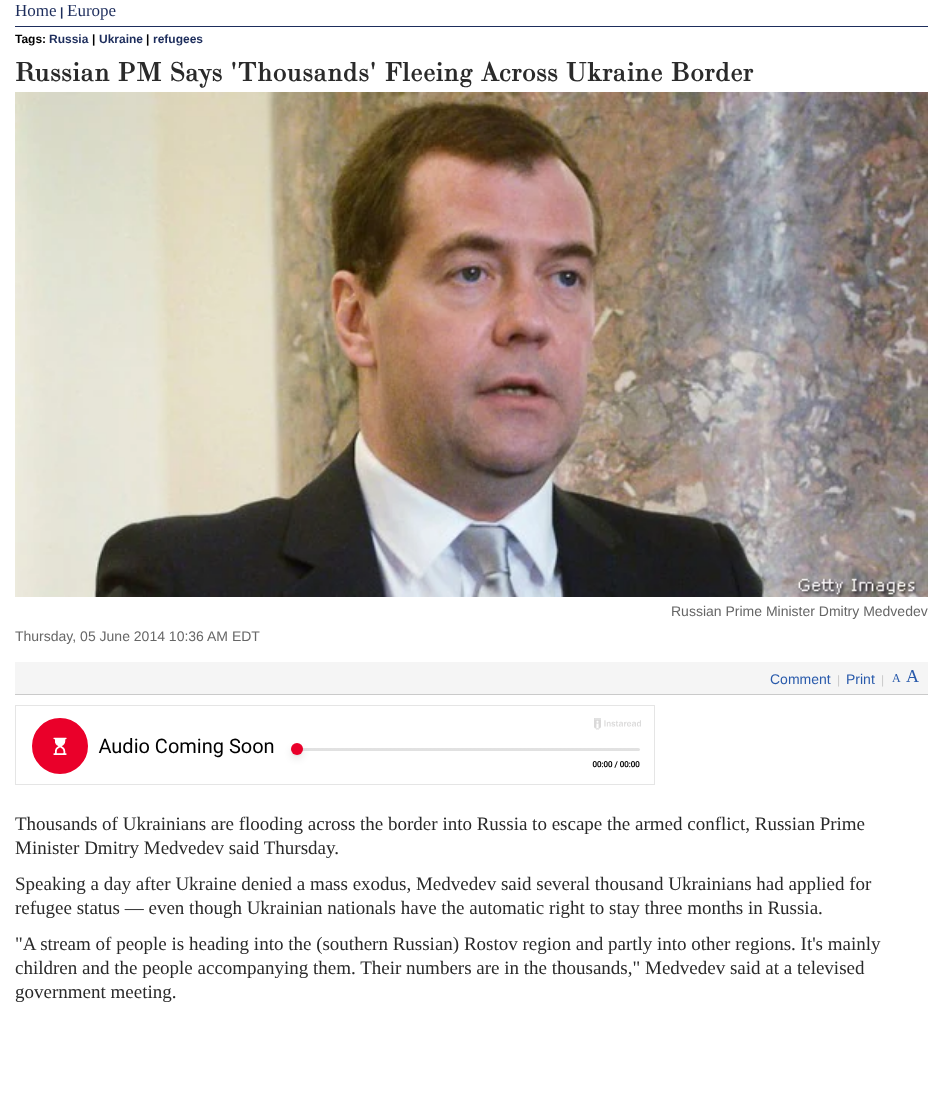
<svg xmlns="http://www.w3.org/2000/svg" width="943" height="1094">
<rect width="100%" height="100%" fill="#fff"/>
<rect x="15" y="26" width="913" height="1" fill="#1d2d5c"/>
<text x="15" y="16" style="font-family:Liberation Serif;font-size:17px;fill:#1d2d5c">Home</text>
<text x="60" y="16" style="font-family:Liberation Sans;font-size:12px;font-weight:bold;fill:#1d2d5c">|</text>
<text x="67" y="16" style="font-family:Liberation Serif;font-size:17px;fill:#1d2d5c">Europe</text>
<text x="15" y="43" style="font-family:Liberation Sans;font-size:12px;font-weight:bold;fill:#000">Tags:</text>
<text x="49" y="43" style="font-family:Liberation Sans;font-size:12px;font-weight:bold;fill:#1d2d5c">Russia</text>
<text x="92" y="43" style="font-family:Liberation Sans;font-size:12px;font-weight:bold;fill:#000">|</text>
<text x="99" y="43" style="font-family:Liberation Sans;font-size:12px;font-weight:bold;fill:#1d2d5c">Ukraine</text>
<text x="146" y="43" style="font-family:Liberation Sans;font-size:12px;font-weight:bold;fill:#000">|</text>
<text x="153" y="43" style="font-family:Liberation Sans;font-size:12px;font-weight:bold;fill:#1d2d5c">refugees</text>
<text x="15" y="81" style="font-family:'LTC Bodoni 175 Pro';font-size:26px;font-weight:bold;letter-spacing:1px;fill:#2a2a2a">Russian PM Says 'Thousands' Fleeing Across Ukraine Border</text>
<image x="15" y="92" width="913" height="505" href="media/1.png"/>
<text x="671" y="616" style="font-family:Liberation Sans;font-size:14px;fill:#666">Russian Prime Minister Dmitry Medvedev</text>
<text x="15" y="641" style="font-family:Liberation Sans;font-size:14px;fill:#666">Thursday, 05 June 2014 10:36 AM EDT</text>
<rect x="15" y="662" width="913" height="32" fill="#f5f5f5"/>
<rect x="15" y="694" width="913" height="1" fill="#cacaca"/>
<text x="770" y="684" style="font-family:Liberation Sans;font-size:14px;fill:#295aab">Comment</text>
<text x="837" y="684" style="font-family:Liberation Sans;font-size:12px;fill:#cacaca">|</text>
<text x="846" y="684" style="font-family:Liberation Sans;font-size:14px;fill:#295aab">Print</text>
<text x="881" y="684" style="font-family:Liberation Sans;font-size:12px;fill:#cacaca">|</text>
<text x="892" y="682" style="font-family:Liberation Serif;font-size:12px;fill:#295aab">A</text>
<text x="906" y="682" style="font-family:Liberation Serif;font-size:18px;fill:#295aab">A</text>
<image x="15" y="705" width="640" height="80" href="media/2.png"/>
<text x="15" y="830" style="font-family:Liberation Serif;font-size:19px;fill:#2a2a2a">Thousands of Ukrainians are flooding across the border into Russia to escape the armed conflict, Russian Prime</text>
<text x="15" y="854" style="font-family:Liberation Serif;font-size:19px;fill:#2a2a2a">Minister Dmitry Medvedev said Thursday.</text>
<text x="15" y="890" style="font-family:Liberation Serif;font-size:19px;fill:#2a2a2a">Speaking a day after Ukraine denied a mass exodus, Medvedev said several thousand Ukrainians had applied for</text>
<text x="15" y="914" style="font-family:Liberation Serif;font-size:19px;fill:#2a2a2a">refugee status — even though Ukrainian nationals have the automatic right to stay three months in Russia.</text>
<text x="15" y="950" style="font-family:Liberation Serif;font-size:19px;fill:#2a2a2a">"A stream of people is heading into the (southern Russian) Rostov region and partly into other regions. It's mainly</text>
<text x="15" y="974" style="font-family:Liberation Serif;font-size:19px;fill:#2a2a2a">children and the people accompanying them. Their numbers are in the thousands," Medvedev said at a televised</text>
<text x="15" y="998" style="font-family:Liberation Serif;font-size:19px;fill:#2a2a2a">government meeting.</text>
</svg>
